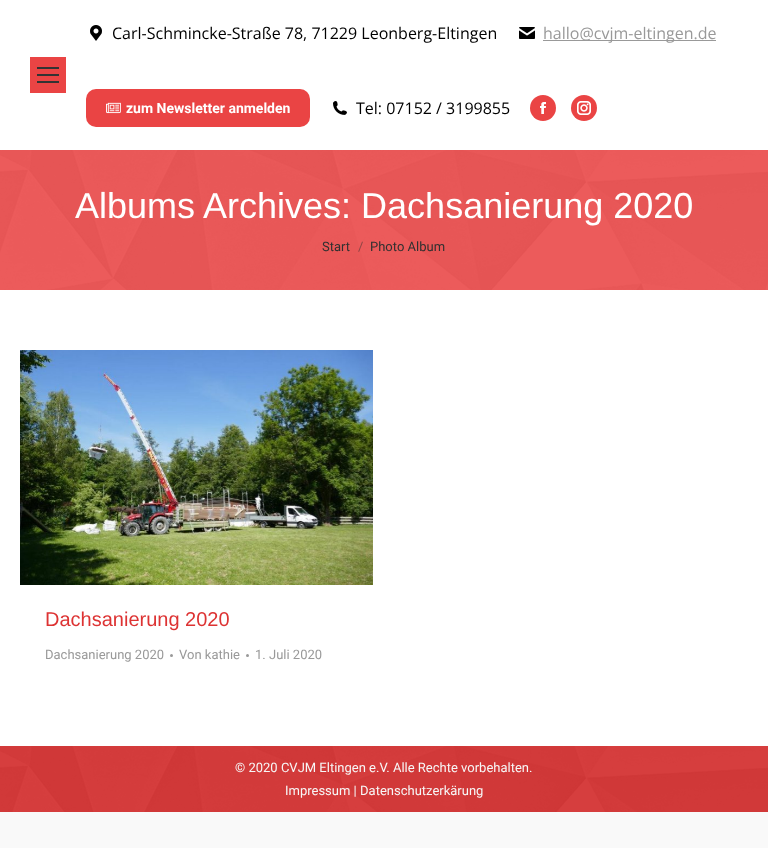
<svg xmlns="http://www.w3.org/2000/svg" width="768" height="848">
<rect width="100%" height="100%" fill="#f9f9f9"/>
<rect width="768" height="746" fill="#fff"/>
<rect x="30" y="57" width="36" height="36" fill="#ea4444"/>
<rect x="37" y="67" width="22" height="2" fill="#333"/>
<rect x="37" y="74" width="22" height="2" fill="#333"/>
<rect x="37" y="81" width="22" height="2" fill="#333"/>
<image x="90" y="25" width="12" height="16" href="media/1.png"/>
<text x="112" y="39" style="font-family:Open Sans;font-size:16px;fill:#000">Carl-Schmincke-Straße 78, 71229 Leonberg-Eltingen</text>
<image x="519" y="27" width="16" height="12" href="media/2.png"/>
<rect x="543" y="40" width="173" height="1" fill="#999"/>
<text x="543" y="39" style="font-family:Open Sans;font-size:16px;fill:#999">hallo@cvjm-eltingen.de</text>
<rect x="86" y="89" width="224" height="38" rx="10" fill="#ea4444"/>
<image x="106" y="102" width="15" height="12" href="media/3.png"/>
<text x="126" y="113" style="font-family:Roboto;font-size:14px;font-weight:bold;fill:#fff">zum Newsletter anmelden</text>
<image x="333" y="101" width="14" height="14" href="media/4.png"/>
<text x="356" y="114" style="font-family:Open Sans;font-size:16px;fill:#000">Tel: 07152 / 3199855</text>
<circle cx="543" cy="108" r="13" fill="#ea4444"/>
<image x="540" y="102" width="6" height="12" href="media/5.png"/>
<circle cx="584" cy="108" r="13" fill="#ea4444"/>
<image x="577" y="101" width="14" height="14" href="media/6.png"/>
<rect y="150" width="768" height="140" fill="#ea4444"/>
<image x="0" y="150" width="768" height="140" href="media/7.png"/>
<text x="75" y="218" style="font-family:Liberation Sans;font-size:36px;fill:#fff">Albums Archives: Dachsanierung 2020</text>
<text x="322" y="251" style="font-family:Roboto;font-size:13px;fill:#303030">Start</text>
<text x="358" y="251" style="font-family:Roboto;font-size:13px;fill:#8e4545">/</text>
<text x="370" y="251" style="font-family:Roboto;font-size:13px;fill:#303030">Photo Album</text>
<image x="20" y="350" width="353" height="235" href="media/8.png"/>
<text x="45" y="626" style="font-family:Liberation Sans;font-size:20px;fill:#d33">Dachsanierung 2020</text>
<text x="45" y="659" style="font-family:Roboto;font-size:13px;fill:#999">Dachsanierung 2020</text>
<circle cx="171.5" cy="655.5" r="1.5" fill="#999"/>
<text x="179" y="659" style="font-family:Roboto;font-size:13px;fill:#999">Von kathie</text>
<circle cx="247.5" cy="655.5" r="1.5" fill="#999"/>
<text x="255" y="659" style="font-family:Roboto;font-size:13px;fill:#999">1. Juli 2020</text>
<rect y="746" width="768" height="66" fill="#d12323"/>
<image x="0" y="746" width="768" height="66" href="media/9.png"/>
<text x="235" y="772" style="font-family:Roboto;font-size:13px;fill:#f7f7f7">© 2020 CVJM Eltingen e.V. Alle Rechte vorbehalten.</text>
<text x="285" y="795" style="font-family:Roboto;font-size:13px;fill:#f7f7f7">Impressum | Datenschutzerkärung</text>
</svg>
